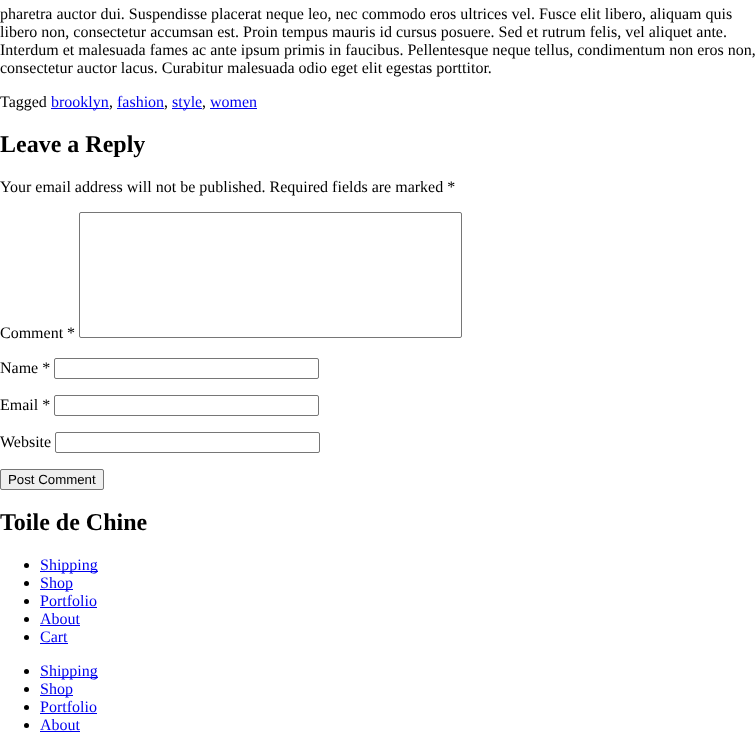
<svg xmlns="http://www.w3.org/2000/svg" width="756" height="739">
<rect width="100%" height="100%" fill="#fff"/>
<text x="0" y="19" style="font-family:Liberation Serif;font-size:16px;fill:#000">pharetra auctor dui. Suspendisse placerat neque leo, nec commodo eros ultrices vel. Fusce elit libero, aliquam quis</text>
<text x="0" y="37" style="font-family:Liberation Serif;font-size:16px;fill:#000">libero non, consectetur accumsan est. Proin tempus mauris id cursus posuere. Sed et rutrum felis, vel aliquet ante.</text>
<text x="0" y="55" style="font-family:Liberation Serif;font-size:16px;fill:#000">Interdum et malesuada fames ac ante ipsum primis in faucibus. Pellentesque neque tellus, condimentum non eros non,</text>
<text x="0" y="73" style="font-family:Liberation Serif;font-size:16px;fill:#000">consectetur auctor lacus. Curabitur malesuada odio eget elit egestas porttitor.</text>
<text x="0" y="107" style="font-family:Liberation Serif;font-size:16px;fill:#000">Tagged</text>
<rect x="51" y="108" width="58" height="1" fill="#00e"/>
<text x="51" y="107" style="font-family:Liberation Serif;font-size:16px;fill:#00e">brooklyn</text>
<text x="109" y="107" style="font-family:Liberation Serif;font-size:16px;fill:#000">,</text>
<text x="117" y="107" style="font-family:Liberation Serif;font-size:16px;fill:#00e">fashion</text>
<text x="164" y="107" style="font-family:Liberation Serif;font-size:16px;fill:#000">,</text>
<rect x="117" y="108" width="47" height="1" fill="#00e"/>
<rect x="172" y="108" width="30" height="1" fill="#00e"/>
<text x="172" y="107" style="font-family:Liberation Serif;font-size:16px;fill:#00e">style</text>
<text x="202" y="107" style="font-family:Liberation Serif;font-size:16px;fill:#000">,</text>
<rect x="210" y="108" width="47" height="1" fill="#00e"/>
<text x="210" y="107" style="font-family:Liberation Serif;font-size:16px;fill:#00e">women</text>
<text x="0" y="152" style="font-family:Liberation Serif;font-size:24px;font-weight:bold;fill:#000">Leave a Reply</text>
<text x="0" y="192" style="font-family:Liberation Serif;font-size:16px;fill:#000">Your email address will not be published. Required fields are marked *</text>
<text x="0" y="338" style="font-family:Liberation Serif;font-size:16px;fill:#000">Comment *</text>
<rect x="79.5" y="212.5" width="382" height="125" rx="1.5" fill="none" stroke="#767676"/>
<text x="0" y="373" style="font-family:Liberation Serif;font-size:16px;fill:#000">Name *</text>
<rect x="54.5" y="358.5" width="264" height="20" rx="1.5" fill="none" stroke="#767676"/>
<text x="0" y="410" style="font-family:Liberation Serif;font-size:16px;fill:#000">Email *</text>
<rect x="54.5" y="395.5" width="264" height="20" rx="1.5" fill="none" stroke="#767676"/>
<text x="0" y="447" style="font-family:Liberation Serif;font-size:16px;fill:#000">Website</text>
<rect x="55.5" y="432.5" width="264" height="20" rx="1.5" fill="none" stroke="#767676"/>
<rect x="0.5" y="469.5" width="103" height="20" rx="1.5" fill="#efefef" stroke="#767676"/>
<text x="8" y="484" style="font-family:Liberation Sans;font-size:13.25px;fill:#000">Post Comment</text>
<text x="0" y="530" style="font-family:Liberation Serif;font-size:24px;font-weight:bold;fill:#000">Toile de Chine</text>
<circle cx="26.5" cy="565.5" r="2.5" fill="#000"/>
<rect x="40" y="571" width="58" height="1" fill="#00e"/>
<text x="40" y="570" style="font-family:Liberation Serif;font-size:16px;fill:#00e">Shipping</text>
<circle cx="26.5" cy="583.5" r="2.5" fill="#000"/>
<rect x="40" y="589" width="33" height="1" fill="#00e"/>
<text x="40" y="588" style="font-family:Liberation Serif;font-size:16px;fill:#00e">Shop</text>
<circle cx="26.5" cy="601.5" r="2.5" fill="#000"/>
<text x="40" y="606" style="font-family:Liberation Serif;font-size:16px;fill:#00e">Portfolio</text>
<rect x="40" y="607" width="57" height="1" fill="#00e"/>
<circle cx="26.5" cy="619.5" r="2.5" fill="#000"/>
<text x="40" y="624" style="font-family:Liberation Serif;font-size:16px;fill:#00e">About</text>
<rect x="40" y="625" width="40" height="1" fill="#00e"/>
<circle cx="26.5" cy="637.5" r="2.5" fill="#000"/>
<text x="40" y="642" style="font-family:Liberation Serif;font-size:16px;fill:#00e">Cart</text>
<rect x="40" y="643" width="28" height="1" fill="#00e"/>
<circle cx="26.5" cy="671.5" r="2.5" fill="#000"/>
<rect x="40" y="677" width="58" height="1" fill="#00e"/>
<text x="40" y="676" style="font-family:Liberation Serif;font-size:16px;fill:#00e">Shipping</text>
<circle cx="26.5" cy="689.5" r="2.5" fill="#000"/>
<rect x="40" y="695" width="33" height="1" fill="#00e"/>
<text x="40" y="694" style="font-family:Liberation Serif;font-size:16px;fill:#00e">Shop</text>
<circle cx="26.5" cy="707.5" r="2.5" fill="#000"/>
<text x="40" y="712" style="font-family:Liberation Serif;font-size:16px;fill:#00e">Portfolio</text>
<rect x="40" y="713" width="57" height="1" fill="#00e"/>
<circle cx="26.5" cy="725.5" r="2.5" fill="#000"/>
<text x="40" y="730" style="font-family:Liberation Serif;font-size:16px;fill:#00e">About</text>
<rect x="40" y="731" width="40" height="1" fill="#00e"/>
</svg>
